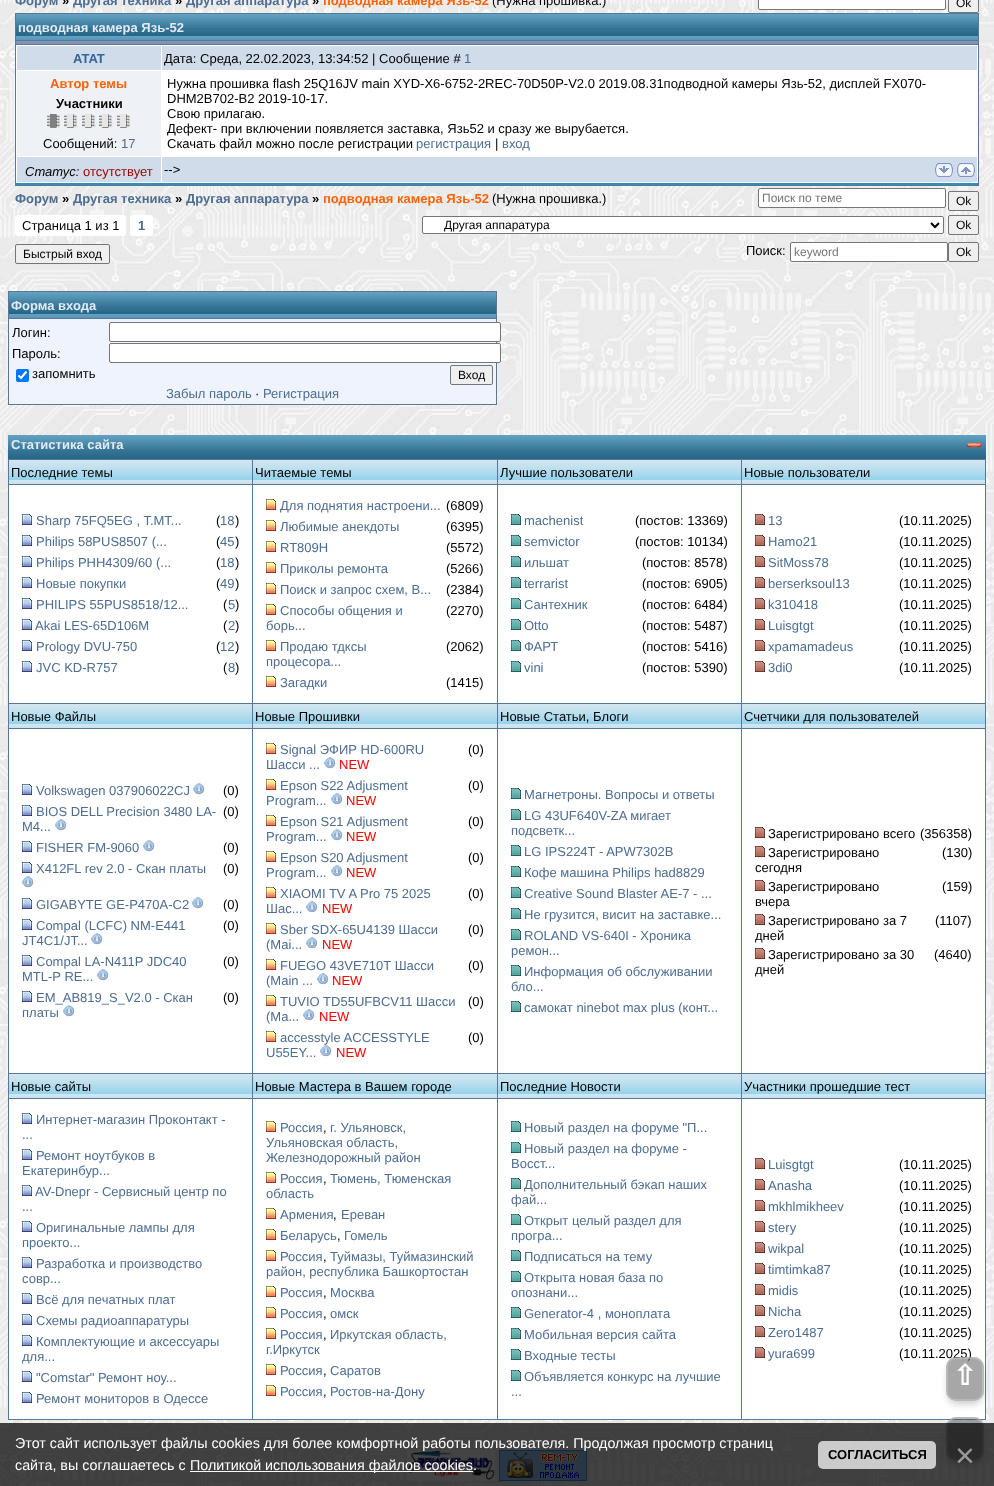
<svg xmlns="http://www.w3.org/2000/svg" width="994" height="1486">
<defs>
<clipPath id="clip1"><path d="M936 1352h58v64h-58zm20 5h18c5.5 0 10 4.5 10 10v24c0 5.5-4.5 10-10 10h-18c-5.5 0-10-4.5-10-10v-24c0-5.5 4.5-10 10-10z" clip-rule="evenodd"/></clipPath>
<clipPath id="clip2"><path d="M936 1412h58v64h-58zm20 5h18c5.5 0 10 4.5 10 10v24c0 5.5-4.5 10-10 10h-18c-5.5 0-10-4.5-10-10v-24c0-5.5 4.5-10 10-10z" clip-rule="evenodd"/></clipPath>
</defs>
<rect width="100%" height="100%" fill="#fff"/>
<image x="0" y="0" width="994" height="1486" href="media/1.png"/>
<text x="15" y="5" style="font-family:Liberation Sans;font-size:13px;font-weight:bold;fill:#4d6d91">Форум</text>
<text x="62" y="5" style="font-family:Liberation Sans;font-size:13px;font-weight:bold;fill:#000">»</text>
<text x="73" y="5" style="font-family:Liberation Sans;font-size:13px;font-weight:bold;fill:#4d6d91">Другая техника</text>
<text x="175" y="5" style="font-family:Liberation Sans;font-size:13px;font-weight:bold;fill:#000">»</text>
<text x="186" y="5" style="font-family:Liberation Sans;font-size:13px;font-weight:bold;fill:#4d6d91">Другая аппаратура</text>
<text x="312" y="5" style="font-family:Liberation Sans;font-size:13px;font-weight:bold;fill:#000">»</text>
<text x="323" y="5" style="font-family:Liberation Sans;font-size:13px;font-weight:bold;fill:#ff6205">подводная камера Язь-52</text>
<text x="492" y="5" style="font-family:Liberation Sans;font-size:13px;fill:#000">(Нужна прошивка.)</text>
<rect x="758.5" y="-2.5" width="187" height="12" rx="1.5" fill="#fff" stroke="#767676"/>
<rect x="948.5" y="-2.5" width="30" height="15" rx="1.5" fill="#efefef" stroke="#767676"/>
<text x="956" y="7" style="font-family:Liberation Sans;font-size:12px;fill:#000">Ok</text>
<rect x="15" y="13" width="964" height="173" fill="#597798"/>
<image x="16" y="14" width="962" height="26" href="media/2.png"/>
<text x="18" y="32" style="font-family:Liberation Sans;font-size:13px;font-weight:bold;fill:#e2ebf5">подводная камера Язь-52</text>
<rect x="16" y="41" width="962" height="3" fill="#8394b2"/>
<rect x="16" y="45" width="962" height="138" fill="#fff"/>
<rect x="17" y="46" width="144" height="24" fill="#d1dceb"/>
<text x="73" y="63" style="font-family:Liberation Sans;font-size:13px;font-weight:bold;fill:#369">ATAT</text>
<rect x="162" y="46" width="815" height="24" fill="#d1dceb"/>
<text x="164" y="63" style="font-family:Liberation Sans;font-size:13px;fill:#000">Дата: Среда, 22.02.2023, 13:34:52 | Сообщение #</text>
<text x="464" y="63" style="font-family:Liberation Sans;font-size:13px;fill:#4d6d91">1</text>
<rect x="17" y="71" width="144" height="85" fill="#eef2f7"/>
<text x="50" y="88" style="font-family:Liberation Sans;font-size:13px;font-weight:bold;fill:#ff6205">Автор темы</text>
<text x="56" y="108" style="font-family:Liberation Sans;font-size:13px;font-weight:bold;fill:#000">Участники</text>
<image x="47" y="114" width="83" height="14" href="media/3.png"/>
<text x="43" y="148" style="font-family:Liberation Sans;font-size:13px;fill:#000">Сообщений:</text>
<text x="121" y="148" style="font-family:Liberation Sans;font-size:13px;fill:#4d6d91">17</text>
<text x="167" y="88" style="font-family:Liberation Sans;font-size:13px;fill:#000">Нужна прошивка flash 25Q16JV main XYD-X6-6752-2REC-70D50P-V2.0 2019.08.31подводной камеры Язь-52, дисплей FX070-</text>
<text x="167" y="103" style="font-family:Liberation Sans;font-size:13px;fill:#000">DHM2B702-B2 2019-10-17.</text>
<text x="167" y="118" style="font-family:Liberation Sans;font-size:13px;fill:#000">Свою прилагаю.</text>
<text x="167" y="133" style="font-family:Liberation Sans;font-size:13px;fill:#000">Дефект- при включении появляется заставка, Язь52 и сразу же вырубается.</text>
<text x="167" y="148" style="font-family:Liberation Sans;font-size:13px;fill:#000">Скачать файл можно после регистрации</text>
<text x="416" y="148" style="font-family:Liberation Sans;font-size:13px;fill:#4d6d91">регистрация</text>
<text x="495" y="148" style="font-family:Liberation Sans;font-size:13px;fill:#000">|</text>
<text x="502" y="148" style="font-family:Liberation Sans;font-size:13px;fill:#4d6d91">вход</text>
<rect x="17" y="157" width="144" height="25" fill="#d1dceb"/>
<text x="25" y="176" style="font-family:Liberation Sans;font-size:13px;font-style:italic;fill:#000">Статус:</text>
<text x="83" y="176" style="font-family:Liberation Sans;font-size:13px;fill:#900">отсутствует</text>
<rect x="162" y="157" width="815" height="25" fill="#d1dceb"/>
<text x="164" y="174" style="font-family:Liberation Sans;font-size:13px;fill:#000">--&gt;</text>
<image x="935" y="163" width="18" height="14" href="media/4.png"/>
<image x="957" y="163" width="18" height="14" href="media/5.png"/>
<rect x="16" y="183" width="962" height="2" fill="#318eb7"/>
<text x="15" y="203" style="font-family:Liberation Sans;font-size:13px;font-weight:bold;fill:#4d6d91">Форум</text>
<text x="62" y="203" style="font-family:Liberation Sans;font-size:13px;font-weight:bold;fill:#000">»</text>
<text x="73" y="203" style="font-family:Liberation Sans;font-size:13px;font-weight:bold;fill:#4d6d91">Другая техника</text>
<text x="175" y="203" style="font-family:Liberation Sans;font-size:13px;font-weight:bold;fill:#000">»</text>
<text x="186" y="203" style="font-family:Liberation Sans;font-size:13px;font-weight:bold;fill:#4d6d91">Другая аппаратура</text>
<text x="312" y="203" style="font-family:Liberation Sans;font-size:13px;font-weight:bold;fill:#000">»</text>
<text x="323" y="203" style="font-family:Liberation Sans;font-size:13px;font-weight:bold;fill:#ff6205">подводная камера Язь-52</text>
<text x="492" y="203" style="font-family:Liberation Sans;font-size:13px;fill:#000">(Нужна прошивка.)</text>
<rect x="758.5" y="188.5" width="187" height="19" rx="1.5" fill="#fff" stroke="#767676"/>
<text x="762" y="202" style="font-family:Liberation Sans;font-size:12px;fill:#757575">Поиск по теме</text>
<rect x="948.5" y="191.5" width="30" height="19" rx="1.5" fill="#efefef" stroke="#767676"/>
<text x="956" y="205" style="font-family:Liberation Sans;font-size:12px;fill:#000">Ok</text>
<rect x="15" y="215" width="111" height="21" rx="3" fill="#fff"/>
<text x="22" y="230" style="font-family:Liberation Sans;font-size:13px;fill:#000">Страница 1 из 1</text>
<rect x="130" y="215" width="23" height="21" rx="3" fill="#fff"/>
<text x="138" y="230" style="font-family:Liberation Sans;font-size:13px;font-weight:bold;fill:#4d6d91">1</text>
<rect x="422.5" y="216.5" width="521" height="17" rx="1.5" fill="#fff" stroke="#767676"/>
<path d="M931 223l4 4l4-4" fill="none" stroke="#000" stroke-width="2"/>
<text x="444" y="229" style="font-family:Liberation Sans;font-size:12px;fill:#000">Другая аппаратура</text>
<rect x="948.5" y="215.5" width="30" height="19" rx="1.5" fill="#efefef" stroke="#767676"/>
<text x="956" y="229" style="font-family:Liberation Sans;font-size:12px;fill:#000">Ok</text>
<rect x="15.5" y="244.5" width="94" height="19" rx="1.5" fill="#efefef" stroke="#767676"/>
<text x="23" y="258" style="font-family:Liberation Sans;font-size:12px;fill:#000">Быстрый вход</text>
<text x="746" y="255" style="font-family:Liberation Sans;font-size:13px;fill:#000">Поиск:</text>
<rect x="790.5" y="242.5" width="157" height="19" rx="1.5" fill="#fff" stroke="#767676"/>
<text x="794" y="256" style="font-family:Liberation Sans;font-size:12px;fill:#757575">keyword</text>
<rect x="948.5" y="242.5" width="30" height="19" rx="1.5" fill="#efefef" stroke="#767676"/>
<text x="956" y="256" style="font-family:Liberation Sans;font-size:12px;fill:#000">Ok</text>
<rect x="8" y="291" width="489" height="114" fill="#597798"/>
<image x="9" y="292" width="487" height="26" href="media/6.png"/>
<text x="11" y="310" style="font-family:Liberation Sans;font-size:13px;font-weight:bold;fill:#e2ebf5">Форма входа</text>
<rect x="9" y="319" width="487" height="85" fill="#eff3fe"/>
<text x="12" y="337" style="font-family:Liberation Sans;font-size:13px;fill:#000">Логин:</text>
<rect x="109.5" y="322.5" width="391" height="19" rx="1.5" fill="#fff" stroke="#767676"/>
<text x="12" y="358" style="font-family:Liberation Sans;font-size:13px;fill:#000">Пароль:</text>
<rect x="109.5" y="343.5" width="391" height="19" rx="1.5" fill="#fff" stroke="#767676"/>
<rect x="16" y="369" width="13" height="13" rx="2" fill="#0075ff"/>
<path d="M18.5 375.5l2.5 2.5l5.5-6.5" fill="none" stroke="#fff" stroke-width="2.1"/>
<text x="32" y="378" style="font-family:Liberation Sans;font-size:13px;fill:#000">запомнить</text>
<rect x="450.5" y="365.5" width="42" height="19" rx="1.5" fill="#efefef" stroke="#767676"/>
<text x="458" y="379" style="font-family:Liberation Sans;font-size:12px;fill:#000">Вход</text>
<text x="166" y="398" style="font-family:Liberation Sans;font-size:13px;fill:#4d6d91">Забыл пароль</text>
<text x="255" y="398" style="font-family:Liberation Sans;font-size:13px;fill:#000">·</text>
<text x="263" y="398" style="font-family:Liberation Sans;font-size:13px;fill:#4d6d91">Регистрация</text>
<image x="8" y="435" width="978" height="24" href="media/7.png"/>
<text x="11" y="449" style="font-family:Liberation Sans;font-size:13px;font-weight:bold;fill:#e2ebf5">Статистика сайта</text>
<image x="967" y="443" width="14" height="4" href="media/8.png"/>
<rect x="8" y="459" width="978" height="961" fill="#597798"/>
<image x="9" y="460" width="243" height="24" href="media/9.png"/>
<text x="11" y="477" style="font-family:Liberation Sans;font-size:13px;fill:#000">Последние темы</text>
<image x="253" y="460" width="244" height="24" href="media/10.png"/>
<text x="255" y="477" style="font-family:Liberation Sans;font-size:13px;fill:#000">Читаемые темы</text>
<image x="498" y="460" width="243" height="24" href="media/9.png"/>
<text x="500" y="477" style="font-family:Liberation Sans;font-size:13px;fill:#000">Лучшие пользователи</text>
<image x="742" y="460" width="243" height="24" href="media/9.png"/>
<text x="744" y="477" style="font-family:Liberation Sans;font-size:13px;fill:#000">Новые пользователи</text>
<rect x="9" y="485" width="243" height="218" fill="#fff"/>
<image x="22" y="514" width="10" height="11" href="media/11.png"/>
<text x="36" y="525" style="font-family:Liberation Sans;font-size:13px;fill:#4d6d91">Sharp 75FQ5EG , T.MT...</text>
<text x="216" y="525" style="font-family:Liberation Sans;font-size:13px;fill:#000">(</text>
<text x="220" y="525" style="font-family:Liberation Sans;font-size:13px;fill:#4d6d91">18</text>
<text x="235" y="525" style="font-family:Liberation Sans;font-size:13px;fill:#000">)</text>
<image x="22" y="535" width="10" height="11" href="media/11.png"/>
<text x="36" y="546" style="font-family:Liberation Sans;font-size:13px;fill:#4d6d91">Philips 58PUS8507 (...</text>
<text x="216" y="546" style="font-family:Liberation Sans;font-size:13px;fill:#000">(</text>
<text x="220" y="546" style="font-family:Liberation Sans;font-size:13px;fill:#4d6d91">45</text>
<text x="235" y="546" style="font-family:Liberation Sans;font-size:13px;fill:#000">)</text>
<image x="22" y="556" width="10" height="11" href="media/11.png"/>
<text x="36" y="567" style="font-family:Liberation Sans;font-size:13px;fill:#4d6d91">Philips PHH4309/60 (...</text>
<text x="216" y="567" style="font-family:Liberation Sans;font-size:13px;fill:#000">(</text>
<text x="220" y="567" style="font-family:Liberation Sans;font-size:13px;fill:#4d6d91">18</text>
<text x="235" y="567" style="font-family:Liberation Sans;font-size:13px;fill:#000">)</text>
<image x="22" y="577" width="10" height="11" href="media/11.png"/>
<text x="36" y="588" style="font-family:Liberation Sans;font-size:13px;fill:#4d6d91">Новые покупки</text>
<text x="216" y="588" style="font-family:Liberation Sans;font-size:13px;fill:#000">(</text>
<text x="220" y="588" style="font-family:Liberation Sans;font-size:13px;fill:#4d6d91">49</text>
<text x="235" y="588" style="font-family:Liberation Sans;font-size:13px;fill:#000">)</text>
<image x="22" y="598" width="10" height="11" href="media/11.png"/>
<text x="36" y="609" style="font-family:Liberation Sans;font-size:13px;fill:#4d6d91">PHILIPS 55PUS8518/12...</text>
<text x="223" y="609" style="font-family:Liberation Sans;font-size:13px;fill:#000">(</text>
<text x="228" y="609" style="font-family:Liberation Sans;font-size:13px;fill:#4d6d91">5</text>
<text x="235" y="609" style="font-family:Liberation Sans;font-size:13px;fill:#000">)</text>
<image x="22" y="619" width="10" height="11" href="media/11.png"/>
<text x="35" y="630" style="font-family:Liberation Sans;font-size:13px;fill:#4d6d91">Akai LES-65D106M</text>
<text x="223" y="630" style="font-family:Liberation Sans;font-size:13px;fill:#000">(</text>
<text x="228" y="630" style="font-family:Liberation Sans;font-size:13px;fill:#4d6d91">2</text>
<text x="235" y="630" style="font-family:Liberation Sans;font-size:13px;fill:#000">)</text>
<image x="22" y="640" width="10" height="11" href="media/11.png"/>
<text x="36" y="651" style="font-family:Liberation Sans;font-size:13px;fill:#4d6d91">Prology DVU-750</text>
<text x="216" y="651" style="font-family:Liberation Sans;font-size:13px;fill:#000">(</text>
<text x="220" y="651" style="font-family:Liberation Sans;font-size:13px;fill:#4d6d91">12</text>
<text x="235" y="651" style="font-family:Liberation Sans;font-size:13px;fill:#000">)</text>
<image x="22" y="661" width="10" height="11" href="media/11.png"/>
<text x="36" y="672" style="font-family:Liberation Sans;font-size:13px;fill:#4d6d91">JVC KD-R757</text>
<text x="223" y="672" style="font-family:Liberation Sans;font-size:13px;fill:#000">(</text>
<text x="228" y="672" style="font-family:Liberation Sans;font-size:13px;fill:#4d6d91">8</text>
<text x="235" y="672" style="font-family:Liberation Sans;font-size:13px;fill:#000">)</text>
<rect x="253" y="485" width="244" height="218" fill="#fff"/>
<image x="266" y="499" width="10" height="11" href="media/12.png"/>
<text x="280" y="510" style="font-family:Liberation Sans;font-size:13px;fill:#4d6d91">Для поднятия настроени...</text>
<text x="446" y="510" style="font-family:Liberation Sans;font-size:13px;fill:#000">(6809)</text>
<image x="266" y="520" width="10" height="11" href="media/12.png"/>
<text x="280" y="531" style="font-family:Liberation Sans;font-size:13px;fill:#4d6d91">Любимые анекдоты</text>
<text x="446" y="531" style="font-family:Liberation Sans;font-size:13px;fill:#000">(6395)</text>
<image x="266" y="541" width="10" height="11" href="media/12.png"/>
<text x="280" y="552" style="font-family:Liberation Sans;font-size:13px;fill:#4d6d91">RT809H</text>
<text x="446" y="552" style="font-family:Liberation Sans;font-size:13px;fill:#000">(5572)</text>
<image x="266" y="562" width="10" height="11" href="media/12.png"/>
<text x="280" y="573" style="font-family:Liberation Sans;font-size:13px;fill:#4d6d91">Приколы ремонта</text>
<text x="446" y="573" style="font-family:Liberation Sans;font-size:13px;fill:#000">(5266)</text>
<image x="266" y="583" width="10" height="11" href="media/12.png"/>
<text x="280" y="594" style="font-family:Liberation Sans;font-size:13px;fill:#4d6d91">Поиск и запрос схем, B...</text>
<text x="446" y="594" style="font-family:Liberation Sans;font-size:13px;fill:#000">(2384)</text>
<image x="266" y="604" width="10" height="11" href="media/12.png"/>
<text x="280" y="615" style="font-family:Liberation Sans;font-size:13px;fill:#4d6d91">Способы общения и</text>
<text x="266" y="630" style="font-family:Liberation Sans;font-size:13px;fill:#4d6d91">борь...</text>
<text x="446" y="615" style="font-family:Liberation Sans;font-size:13px;fill:#000">(2270)</text>
<image x="266" y="640" width="10" height="11" href="media/12.png"/>
<text x="280" y="651" style="font-family:Liberation Sans;font-size:13px;fill:#4d6d91">Продаю тдксы</text>
<text x="266" y="666" style="font-family:Liberation Sans;font-size:13px;fill:#4d6d91">процесора...</text>
<text x="446" y="651" style="font-family:Liberation Sans;font-size:13px;fill:#000">(2062)</text>
<image x="266" y="676" width="10" height="11" href="media/12.png"/>
<text x="280" y="687" style="font-family:Liberation Sans;font-size:13px;fill:#4d6d91">Загадки</text>
<text x="446" y="687" style="font-family:Liberation Sans;font-size:13px;fill:#000">(1415)</text>
<rect x="498" y="485" width="243" height="218" fill="#fff"/>
<image x="511" y="514" width="10" height="11" href="media/13.png"/>
<text x="524" y="525" style="font-family:Liberation Sans;font-size:13px;fill:#4d6d91">machenist</text>
<text x="635" y="525" style="font-family:Liberation Sans;font-size:13px;fill:#000">(постов: 13369)</text>
<image x="511" y="535" width="10" height="11" href="media/13.png"/>
<text x="524" y="546" style="font-family:Liberation Sans;font-size:13px;fill:#4d6d91">semvictor</text>
<text x="635" y="546" style="font-family:Liberation Sans;font-size:13px;fill:#000">(постов: 10134)</text>
<image x="511" y="556" width="10" height="11" href="media/13.png"/>
<text x="524" y="567" style="font-family:Liberation Sans;font-size:13px;fill:#4d6d91">ильшат</text>
<text x="642" y="567" style="font-family:Liberation Sans;font-size:13px;fill:#000">(постов: 8578)</text>
<image x="511" y="577" width="10" height="11" href="media/13.png"/>
<text x="524" y="588" style="font-family:Liberation Sans;font-size:13px;fill:#4d6d91">terrarist</text>
<text x="642" y="588" style="font-family:Liberation Sans;font-size:13px;fill:#000">(постов: 6905)</text>
<image x="511" y="598" width="10" height="11" href="media/13.png"/>
<text x="524" y="609" style="font-family:Liberation Sans;font-size:13px;fill:#4d6d91">Сантехник</text>
<text x="642" y="609" style="font-family:Liberation Sans;font-size:13px;fill:#000">(постов: 6484)</text>
<image x="511" y="619" width="10" height="11" href="media/13.png"/>
<text x="524" y="630" style="font-family:Liberation Sans;font-size:13px;fill:#4d6d91">Otto</text>
<text x="642" y="630" style="font-family:Liberation Sans;font-size:13px;fill:#000">(постов: 5487)</text>
<image x="511" y="640" width="10" height="11" href="media/13.png"/>
<text x="524" y="651" style="font-family:Liberation Sans;font-size:13px;fill:#4d6d91">ФАРТ</text>
<text x="642" y="651" style="font-family:Liberation Sans;font-size:13px;fill:#000">(постов: 5416)</text>
<image x="511" y="661" width="10" height="11" href="media/13.png"/>
<text x="524" y="672" style="font-family:Liberation Sans;font-size:13px;fill:#4d6d91">vini</text>
<text x="642" y="672" style="font-family:Liberation Sans;font-size:13px;fill:#000">(постов: 5390)</text>
<rect x="742" y="485" width="243" height="218" fill="#fff"/>
<image x="755" y="514" width="10" height="11" href="media/14.png"/>
<text x="768" y="525" style="font-family:Liberation Sans;font-size:13px;fill:#4d6d91">13</text>
<text x="899" y="525" style="font-family:Liberation Sans;font-size:13px;fill:#000">(10.11.2025)</text>
<image x="755" y="535" width="10" height="11" href="media/14.png"/>
<text x="768" y="546" style="font-family:Liberation Sans;font-size:13px;fill:#4d6d91">Hamo21</text>
<text x="899" y="546" style="font-family:Liberation Sans;font-size:13px;fill:#000">(10.11.2025)</text>
<image x="755" y="556" width="10" height="11" href="media/14.png"/>
<text x="768" y="567" style="font-family:Liberation Sans;font-size:13px;fill:#4d6d91">SitMoss78</text>
<text x="899" y="567" style="font-family:Liberation Sans;font-size:13px;fill:#000">(10.11.2025)</text>
<image x="755" y="577" width="10" height="11" href="media/14.png"/>
<text x="768" y="588" style="font-family:Liberation Sans;font-size:13px;fill:#4d6d91">berserksoul13</text>
<text x="899" y="588" style="font-family:Liberation Sans;font-size:13px;fill:#000">(10.11.2025)</text>
<image x="755" y="598" width="10" height="11" href="media/14.png"/>
<text x="768" y="609" style="font-family:Liberation Sans;font-size:13px;fill:#4d6d91">k310418</text>
<text x="899" y="609" style="font-family:Liberation Sans;font-size:13px;fill:#000">(10.11.2025)</text>
<image x="755" y="619" width="10" height="11" href="media/14.png"/>
<text x="768" y="630" style="font-family:Liberation Sans;font-size:13px;fill:#4d6d91">Luisgtgt</text>
<text x="899" y="630" style="font-family:Liberation Sans;font-size:13px;fill:#000">(10.11.2025)</text>
<image x="755" y="640" width="10" height="11" href="media/14.png"/>
<text x="768" y="651" style="font-family:Liberation Sans;font-size:13px;fill:#4d6d91">xpamamadeus</text>
<text x="899" y="651" style="font-family:Liberation Sans;font-size:13px;fill:#000">(10.11.2025)</text>
<image x="755" y="661" width="10" height="11" href="media/14.png"/>
<text x="768" y="672" style="font-family:Liberation Sans;font-size:13px;fill:#4d6d91">3di0</text>
<text x="899" y="672" style="font-family:Liberation Sans;font-size:13px;fill:#000">(10.11.2025)</text>
<image x="9" y="704" width="243" height="24" href="media/9.png"/>
<text x="11" y="721" style="font-family:Liberation Sans;font-size:13px;fill:#000">Новые Файлы</text>
<image x="253" y="704" width="244" height="24" href="media/10.png"/>
<text x="255" y="721" style="font-family:Liberation Sans;font-size:13px;fill:#000">Новые Прошивки</text>
<image x="498" y="704" width="243" height="24" href="media/9.png"/>
<text x="500" y="721" style="font-family:Liberation Sans;font-size:13px;fill:#000">Новые Статьи, Блоги</text>
<image x="742" y="704" width="243" height="24" href="media/9.png"/>
<text x="744" y="721" style="font-family:Liberation Sans;font-size:13px;fill:#000">Счетчики для пользователей</text>
<rect x="9" y="729" width="243" height="344" fill="#fff"/>
<image x="22" y="784" width="10" height="11" href="media/11.png"/>
<text x="36" y="795" style="font-family:Liberation Sans;font-size:13px;fill:#4d6d91">Volkswagen 037906022CJ</text>
<image x="193" y="783" width="12" height="12" href="media/15.png"/>
<text x="223" y="795" style="font-family:Liberation Sans;font-size:13px;fill:#000">(0)</text>
<image x="22" y="805" width="10" height="11" href="media/11.png"/>
<text x="36" y="816" style="font-family:Liberation Sans;font-size:13px;fill:#4d6d91">BIOS DELL Precision 3480 LA-</text>
<text x="22" y="831" style="font-family:Liberation Sans;font-size:13px;fill:#4d6d91">M4...</text>
<image x="55" y="819" width="12" height="12" href="media/15.png"/>
<text x="223" y="816" style="font-family:Liberation Sans;font-size:13px;fill:#000">(0)</text>
<image x="22" y="841" width="10" height="11" href="media/11.png"/>
<text x="36" y="852" style="font-family:Liberation Sans;font-size:13px;fill:#4d6d91">FISHER FM-9060</text>
<image x="143" y="840" width="12" height="12" href="media/15.png"/>
<text x="223" y="852" style="font-family:Liberation Sans;font-size:13px;fill:#000">(0)</text>
<image x="22" y="862" width="10" height="11" href="media/11.png"/>
<text x="36" y="873" style="font-family:Liberation Sans;font-size:13px;fill:#4d6d91">X412FL rev 2.0 - Скан платы</text>
<image x="22" y="876" width="12" height="12" href="media/15.png"/>
<text x="223" y="873" style="font-family:Liberation Sans;font-size:13px;fill:#000">(0)</text>
<image x="22" y="898" width="10" height="11" href="media/11.png"/>
<text x="36" y="909" style="font-family:Liberation Sans;font-size:13px;fill:#4d6d91">GIGABYTE GE-P470A-C2</text>
<image x="192" y="897" width="12" height="12" href="media/15.png"/>
<text x="223" y="909" style="font-family:Liberation Sans;font-size:13px;fill:#000">(0)</text>
<image x="22" y="919" width="10" height="11" href="media/11.png"/>
<text x="36" y="930" style="font-family:Liberation Sans;font-size:13px;fill:#4d6d91">Compal (LCFC) NM-E441</text>
<text x="22" y="945" style="font-family:Liberation Sans;font-size:13px;fill:#4d6d91">JT4C1/JT...</text>
<image x="91" y="933" width="12" height="12" href="media/15.png"/>
<text x="223" y="930" style="font-family:Liberation Sans;font-size:13px;fill:#000">(0)</text>
<image x="22" y="955" width="10" height="11" href="media/11.png"/>
<text x="36" y="966" style="font-family:Liberation Sans;font-size:13px;fill:#4d6d91">Compal LA-N411P JDC40</text>
<text x="22" y="981" style="font-family:Liberation Sans;font-size:13px;fill:#4d6d91">MTL-P RE...</text>
<image x="97" y="969" width="12" height="12" href="media/15.png"/>
<text x="223" y="966" style="font-family:Liberation Sans;font-size:13px;fill:#000">(0)</text>
<image x="22" y="991" width="10" height="11" href="media/11.png"/>
<text x="36" y="1002" style="font-family:Liberation Sans;font-size:13px;fill:#4d6d91">EM_AB819_S_V2.0 - Скан</text>
<text x="22" y="1017" style="font-family:Liberation Sans;font-size:13px;fill:#4d6d91">платы</text>
<image x="63" y="1005" width="12" height="12" href="media/15.png"/>
<text x="223" y="1002" style="font-family:Liberation Sans;font-size:13px;fill:#000">(0)</text>
<rect x="253" y="729" width="244" height="344" fill="#fff"/>
<image x="266" y="743" width="10" height="11" href="media/12.png"/>
<text x="280" y="754" style="font-family:Liberation Sans;font-size:13px;fill:#4d6d91">Signal ЭФИР HD-600RU</text>
<text x="266" y="769" style="font-family:Liberation Sans;font-size:13px;fill:#4d6d91">Шасси ...</text>
<image x="324" y="757" width="12" height="12" href="media/15.png"/>
<text x="339" y="769" style="font-family:Liberation Sans;font-size:13px;fill:#f00">NEW</text>
<text x="468" y="754" style="font-family:Liberation Sans;font-size:13px;fill:#000">(0)</text>
<image x="266" y="779" width="10" height="11" href="media/12.png"/>
<text x="280" y="790" style="font-family:Liberation Sans;font-size:13px;fill:#4d6d91">Epson S22 Adjusment</text>
<text x="266" y="805" style="font-family:Liberation Sans;font-size:13px;fill:#4d6d91">Program...</text>
<image x="331" y="793" width="12" height="12" href="media/15.png"/>
<text x="346" y="805" style="font-family:Liberation Sans;font-size:13px;fill:#f00">NEW</text>
<text x="468" y="790" style="font-family:Liberation Sans;font-size:13px;fill:#000">(0)</text>
<image x="266" y="815" width="10" height="11" href="media/12.png"/>
<text x="280" y="826" style="font-family:Liberation Sans;font-size:13px;fill:#4d6d91">Epson S21 Adjusment</text>
<text x="266" y="841" style="font-family:Liberation Sans;font-size:13px;fill:#4d6d91">Program...</text>
<image x="331" y="829" width="12" height="12" href="media/15.png"/>
<text x="346" y="841" style="font-family:Liberation Sans;font-size:13px;fill:#f00">NEW</text>
<text x="468" y="826" style="font-family:Liberation Sans;font-size:13px;fill:#000">(0)</text>
<image x="266" y="851" width="10" height="11" href="media/12.png"/>
<text x="280" y="862" style="font-family:Liberation Sans;font-size:13px;fill:#4d6d91">Epson S20 Adjusment</text>
<text x="266" y="877" style="font-family:Liberation Sans;font-size:13px;fill:#4d6d91">Program...</text>
<image x="331" y="865" width="12" height="12" href="media/15.png"/>
<text x="346" y="877" style="font-family:Liberation Sans;font-size:13px;fill:#f00">NEW</text>
<text x="468" y="862" style="font-family:Liberation Sans;font-size:13px;fill:#000">(0)</text>
<image x="266" y="887" width="10" height="11" href="media/12.png"/>
<text x="280" y="898" style="font-family:Liberation Sans;font-size:13px;fill:#4d6d91">XIAOMI TV A Pro 75 2025</text>
<text x="266" y="913" style="font-family:Liberation Sans;font-size:13px;fill:#4d6d91">Шас...</text>
<image x="306" y="901" width="12" height="12" href="media/15.png"/>
<text x="322" y="913" style="font-family:Liberation Sans;font-size:13px;fill:#f00">NEW</text>
<text x="468" y="898" style="font-family:Liberation Sans;font-size:13px;fill:#000">(0)</text>
<image x="266" y="923" width="10" height="11" href="media/12.png"/>
<text x="280" y="934" style="font-family:Liberation Sans;font-size:13px;fill:#4d6d91">Sber SDX-65U4139 Шасси</text>
<text x="266" y="949" style="font-family:Liberation Sans;font-size:13px;fill:#4d6d91">(Mai...</text>
<image x="306" y="937" width="12" height="12" href="media/15.png"/>
<text x="322" y="949" style="font-family:Liberation Sans;font-size:13px;fill:#f00">NEW</text>
<text x="468" y="934" style="font-family:Liberation Sans;font-size:13px;fill:#000">(0)</text>
<image x="266" y="959" width="10" height="11" href="media/12.png"/>
<text x="280" y="970" style="font-family:Liberation Sans;font-size:13px;fill:#4d6d91">FUEGO 43VE710T Шасси</text>
<text x="266" y="985" style="font-family:Liberation Sans;font-size:13px;fill:#4d6d91">(Main ...</text>
<image x="317" y="973" width="12" height="12" href="media/15.png"/>
<text x="332" y="985" style="font-family:Liberation Sans;font-size:13px;fill:#f00">NEW</text>
<text x="468" y="970" style="font-family:Liberation Sans;font-size:13px;fill:#000">(0)</text>
<image x="266" y="995" width="10" height="11" href="media/12.png"/>
<text x="280" y="1006" style="font-family:Liberation Sans;font-size:13px;fill:#4d6d91">TUVIO TD55UFBCV11 Шасси</text>
<text x="266" y="1021" style="font-family:Liberation Sans;font-size:13px;fill:#4d6d91">(Ma...</text>
<image x="303" y="1009" width="12" height="12" href="media/15.png"/>
<text x="319" y="1021" style="font-family:Liberation Sans;font-size:13px;fill:#f00">NEW</text>
<text x="468" y="1006" style="font-family:Liberation Sans;font-size:13px;fill:#000">(0)</text>
<image x="266" y="1031" width="10" height="11" href="media/12.png"/>
<text x="280" y="1042" style="font-family:Liberation Sans;font-size:13px;fill:#4d6d91">accesstyle ACCESSTYLE</text>
<text x="266" y="1057" style="font-family:Liberation Sans;font-size:13px;fill:#4d6d91">U55EY...</text>
<image x="320" y="1045" width="12" height="12" href="media/15.png"/>
<text x="336" y="1057" style="font-family:Liberation Sans;font-size:13px;fill:#f00">NEW</text>
<text x="468" y="1042" style="font-family:Liberation Sans;font-size:13px;fill:#000">(0)</text>
<rect x="498" y="729" width="243" height="344" fill="#fff"/>
<image x="511" y="788" width="10" height="11" href="media/13.png"/>
<text x="524" y="799" style="font-family:Liberation Sans;font-size:13px;fill:#4d6d91">Магнетроны. Вопросы и ответы</text>
<image x="511" y="809" width="10" height="11" href="media/13.png"/>
<text x="524" y="820" style="font-family:Liberation Sans;font-size:13px;fill:#4d6d91">LG 43UF640V-ZA мигает</text>
<text x="511" y="835" style="font-family:Liberation Sans;font-size:13px;fill:#4d6d91">подсветк...</text>
<image x="511" y="845" width="10" height="11" href="media/13.png"/>
<text x="524" y="856" style="font-family:Liberation Sans;font-size:13px;fill:#4d6d91">LG IPS224T - APW7302B</text>
<image x="511" y="866" width="10" height="11" href="media/13.png"/>
<text x="524" y="877" style="font-family:Liberation Sans;font-size:13px;fill:#4d6d91">Кофе машина Philips had8829</text>
<image x="511" y="887" width="10" height="11" href="media/13.png"/>
<text x="524" y="898" style="font-family:Liberation Sans;font-size:13px;fill:#4d6d91">Creative Sound Blaster AE-7 - ...</text>
<image x="511" y="908" width="10" height="11" href="media/13.png"/>
<text x="524" y="919" style="font-family:Liberation Sans;font-size:13px;fill:#4d6d91">Не грузится, висит на заставке...</text>
<image x="511" y="929" width="10" height="11" href="media/13.png"/>
<text x="524" y="940" style="font-family:Liberation Sans;font-size:13px;fill:#4d6d91">ROLAND VS-640I - Хроника</text>
<text x="511" y="955" style="font-family:Liberation Sans;font-size:13px;fill:#4d6d91">ремон...</text>
<image x="511" y="965" width="10" height="11" href="media/13.png"/>
<text x="524" y="976" style="font-family:Liberation Sans;font-size:13px;fill:#4d6d91">Информация об обслуживании</text>
<text x="511" y="991" style="font-family:Liberation Sans;font-size:13px;fill:#4d6d91">бло...</text>
<image x="511" y="1001" width="10" height="11" href="media/13.png"/>
<text x="524" y="1012" style="font-family:Liberation Sans;font-size:13px;fill:#4d6d91">самокат ninebot max plus (конт...</text>
<rect x="742" y="729" width="243" height="344" fill="#fff"/>
<image x="755" y="827" width="10" height="11" href="media/14.png"/>
<text x="768" y="838" style="font-family:Liberation Sans;font-size:13px;fill:#000">Зарегистрировано всего</text>
<text x="920" y="838" style="font-family:Liberation Sans;font-size:13px;fill:#000">(356358)</text>
<image x="755" y="846" width="10" height="11" href="media/14.png"/>
<text x="768" y="857" style="font-family:Liberation Sans;font-size:13px;fill:#000">Зарегистрировано</text>
<text x="755" y="872" style="font-family:Liberation Sans;font-size:13px;fill:#000">сегодня</text>
<text x="942" y="857" style="font-family:Liberation Sans;font-size:13px;fill:#000">(130)</text>
<image x="755" y="880" width="10" height="11" href="media/14.png"/>
<text x="768" y="891" style="font-family:Liberation Sans;font-size:13px;fill:#000">Зарегистрировано</text>
<text x="755" y="906" style="font-family:Liberation Sans;font-size:13px;fill:#000">вчера</text>
<text x="942" y="891" style="font-family:Liberation Sans;font-size:13px;fill:#000">(159)</text>
<image x="755" y="914" width="10" height="11" href="media/14.png"/>
<text x="768" y="925" style="font-family:Liberation Sans;font-size:13px;fill:#000">Зарегистрировано за 7</text>
<text x="755" y="940" style="font-family:Liberation Sans;font-size:13px;fill:#000">дней</text>
<text x="935" y="925" style="font-family:Liberation Sans;font-size:13px;fill:#000">(1107)</text>
<image x="755" y="948" width="10" height="11" href="media/14.png"/>
<text x="768" y="959" style="font-family:Liberation Sans;font-size:13px;fill:#000">Зарегистрировано за 30</text>
<text x="755" y="974" style="font-family:Liberation Sans;font-size:13px;fill:#000">дней</text>
<text x="934" y="959" style="font-family:Liberation Sans;font-size:13px;fill:#000">(4640)</text>
<image x="9" y="1074" width="243" height="24" href="media/9.png"/>
<text x="11" y="1091" style="font-family:Liberation Sans;font-size:13px;fill:#000">Новые сайты</text>
<image x="253" y="1074" width="244" height="24" href="media/10.png"/>
<text x="255" y="1091" style="font-family:Liberation Sans;font-size:13px;fill:#000">Новые Мастера в Вашем городе</text>
<image x="498" y="1074" width="243" height="24" href="media/9.png"/>
<text x="500" y="1091" style="font-family:Liberation Sans;font-size:13px;fill:#000">Последние Новости</text>
<image x="742" y="1074" width="243" height="24" href="media/9.png"/>
<text x="744" y="1091" style="font-family:Liberation Sans;font-size:13px;fill:#000">Участники прошедшие тест</text>
<rect x="9" y="1099" width="243" height="320" fill="#fff"/>
<image x="22" y="1113" width="10" height="11" href="media/11.png"/>
<text x="36" y="1124" style="font-family:Liberation Sans;font-size:13px;fill:#4d6d91">Интернет-магазин Проконтакт -</text>
<text x="22" y="1139" style="font-family:Liberation Sans;font-size:13px;fill:#4d6d91">...</text>
<image x="22" y="1149" width="10" height="11" href="media/11.png"/>
<text x="36" y="1160" style="font-family:Liberation Sans;font-size:13px;fill:#4d6d91">Ремонт ноутбуков в</text>
<text x="22" y="1175" style="font-family:Liberation Sans;font-size:13px;fill:#4d6d91">Екатеринбур...</text>
<image x="22" y="1185" width="10" height="11" href="media/11.png"/>
<text x="35" y="1196" style="font-family:Liberation Sans;font-size:13px;fill:#4d6d91">AV-Dnepr - Сервисный центр по</text>
<text x="22" y="1211" style="font-family:Liberation Sans;font-size:13px;fill:#4d6d91">...</text>
<image x="22" y="1221" width="10" height="11" href="media/11.png"/>
<text x="36" y="1232" style="font-family:Liberation Sans;font-size:13px;fill:#4d6d91">Оригинальные лампы для</text>
<text x="22" y="1247" style="font-family:Liberation Sans;font-size:13px;fill:#4d6d91">проекто...</text>
<image x="22" y="1257" width="10" height="11" href="media/11.png"/>
<text x="36" y="1268" style="font-family:Liberation Sans;font-size:13px;fill:#4d6d91">Разработка и производство</text>
<text x="22" y="1283" style="font-family:Liberation Sans;font-size:13px;fill:#4d6d91">совр...</text>
<image x="22" y="1293" width="10" height="11" href="media/11.png"/>
<text x="36" y="1304" style="font-family:Liberation Sans;font-size:13px;fill:#4d6d91">Всё для печатных плат</text>
<image x="22" y="1314" width="10" height="11" href="media/11.png"/>
<text x="36" y="1325" style="font-family:Liberation Sans;font-size:13px;fill:#4d6d91">Схемы радиоаппаратуры</text>
<image x="22" y="1335" width="10" height="11" href="media/11.png"/>
<text x="36" y="1346" style="font-family:Liberation Sans;font-size:13px;fill:#4d6d91">Комплектующие и аксессуары</text>
<text x="22" y="1361" style="font-family:Liberation Sans;font-size:13px;fill:#4d6d91">для...</text>
<image x="22" y="1371" width="10" height="11" href="media/11.png"/>
<text x="36" y="1382" style="font-family:Liberation Sans;font-size:13px;fill:#4d6d91">"Comstar" Ремонт ноу...</text>
<image x="22" y="1392" width="10" height="11" href="media/11.png"/>
<text x="36" y="1403" style="font-family:Liberation Sans;font-size:13px;fill:#4d6d91">Ремонт мониторов в Одессе</text>
<rect x="253" y="1099" width="244" height="320" fill="#fff"/>
<image x="266" y="1121" width="10" height="11" href="media/12.png"/>
<text x="280" y="1132" style="font-family:Liberation Sans;font-size:13px;fill:#4d6d91">Россия</text>
<text x="323" y="1132" style="font-family:Liberation Sans;font-size:13px;fill:#000">,</text>
<text x="330" y="1132" style="font-family:Liberation Sans;font-size:13px;fill:#4d6d91">г. Ульяновск,</text>
<text x="266" y="1147" style="font-family:Liberation Sans;font-size:13px;fill:#4d6d91">Ульяновская область,</text>
<text x="266" y="1162" style="font-family:Liberation Sans;font-size:13px;fill:#4d6d91">Железнодорожный район</text>
<image x="266" y="1172" width="10" height="11" href="media/12.png"/>
<text x="280" y="1183" style="font-family:Liberation Sans;font-size:13px;fill:#4d6d91">Россия</text>
<text x="323" y="1183" style="font-family:Liberation Sans;font-size:13px;fill:#000">,</text>
<text x="330" y="1183" style="font-family:Liberation Sans;font-size:13px;fill:#4d6d91">Тюмень, Тюменская</text>
<text x="266" y="1198" style="font-family:Liberation Sans;font-size:13px;fill:#4d6d91">область</text>
<image x="266" y="1208" width="10" height="11" href="media/12.png"/>
<text x="280" y="1219" style="font-family:Liberation Sans;font-size:13px;fill:#4d6d91">Армения</text>
<text x="333" y="1219" style="font-family:Liberation Sans;font-size:13px;fill:#000">,</text>
<text x="341" y="1219" style="font-family:Liberation Sans;font-size:13px;fill:#4d6d91">Ереван</text>
<image x="266" y="1229" width="10" height="11" href="media/12.png"/>
<text x="280" y="1240" style="font-family:Liberation Sans;font-size:13px;fill:#4d6d91">Беларусь</text>
<text x="337" y="1240" style="font-family:Liberation Sans;font-size:13px;fill:#000">,</text>
<text x="344" y="1240" style="font-family:Liberation Sans;font-size:13px;fill:#4d6d91">Гомель</text>
<image x="266" y="1250" width="10" height="11" href="media/12.png"/>
<text x="280" y="1261" style="font-family:Liberation Sans;font-size:13px;fill:#4d6d91">Россия</text>
<text x="323" y="1261" style="font-family:Liberation Sans;font-size:13px;fill:#000">,</text>
<text x="330" y="1261" style="font-family:Liberation Sans;font-size:13px;fill:#4d6d91">Туймазы, Туймазинский</text>
<text x="266" y="1276" style="font-family:Liberation Sans;font-size:13px;fill:#4d6d91">район, республика Башкортостан</text>
<image x="266" y="1286" width="10" height="11" href="media/12.png"/>
<text x="280" y="1297" style="font-family:Liberation Sans;font-size:13px;fill:#4d6d91">Россия</text>
<text x="323" y="1297" style="font-family:Liberation Sans;font-size:13px;fill:#000">,</text>
<text x="330" y="1297" style="font-family:Liberation Sans;font-size:13px;fill:#4d6d91">Москва</text>
<image x="266" y="1307" width="10" height="11" href="media/12.png"/>
<text x="280" y="1318" style="font-family:Liberation Sans;font-size:13px;fill:#4d6d91">Россия</text>
<text x="323" y="1318" style="font-family:Liberation Sans;font-size:13px;fill:#000">,</text>
<text x="330" y="1318" style="font-family:Liberation Sans;font-size:13px;fill:#4d6d91">омск</text>
<image x="266" y="1328" width="10" height="11" href="media/12.png"/>
<text x="280" y="1339" style="font-family:Liberation Sans;font-size:13px;fill:#4d6d91">Россия</text>
<text x="323" y="1339" style="font-family:Liberation Sans;font-size:13px;fill:#000">,</text>
<text x="330" y="1339" style="font-family:Liberation Sans;font-size:13px;fill:#4d6d91">Иркутская область,</text>
<text x="266" y="1354" style="font-family:Liberation Sans;font-size:13px;fill:#4d6d91">г.Иркутск</text>
<image x="266" y="1364" width="10" height="11" href="media/12.png"/>
<text x="280" y="1375" style="font-family:Liberation Sans;font-size:13px;fill:#4d6d91">Россия</text>
<text x="323" y="1375" style="font-family:Liberation Sans;font-size:13px;fill:#000">,</text>
<text x="330" y="1375" style="font-family:Liberation Sans;font-size:13px;fill:#4d6d91">Саратов</text>
<image x="266" y="1385" width="10" height="11" href="media/12.png"/>
<text x="280" y="1396" style="font-family:Liberation Sans;font-size:13px;fill:#4d6d91">Россия</text>
<text x="323" y="1396" style="font-family:Liberation Sans;font-size:13px;fill:#000">,</text>
<text x="330" y="1396" style="font-family:Liberation Sans;font-size:13px;fill:#4d6d91">Ростов-на-Дону</text>
<rect x="498" y="1099" width="243" height="320" fill="#fff"/>
<image x="511" y="1121" width="10" height="11" href="media/13.png"/>
<text x="524" y="1132" style="font-family:Liberation Sans;font-size:13px;fill:#4d6d91">Новый раздел на форуме "П...</text>
<image x="511" y="1142" width="10" height="11" href="media/13.png"/>
<text x="524" y="1153" style="font-family:Liberation Sans;font-size:13px;fill:#4d6d91">Новый раздел на форуме -</text>
<text x="511" y="1168" style="font-family:Liberation Sans;font-size:13px;fill:#4d6d91">Восст...</text>
<image x="511" y="1178" width="10" height="11" href="media/13.png"/>
<text x="524" y="1189" style="font-family:Liberation Sans;font-size:13px;fill:#4d6d91">Дополнительный бэкап наших</text>
<text x="511" y="1204" style="font-family:Liberation Sans;font-size:13px;fill:#4d6d91">фай...</text>
<image x="511" y="1214" width="10" height="11" href="media/13.png"/>
<text x="524" y="1225" style="font-family:Liberation Sans;font-size:13px;fill:#4d6d91">Открыт целый раздел для</text>
<text x="511" y="1240" style="font-family:Liberation Sans;font-size:13px;fill:#4d6d91">програ...</text>
<image x="511" y="1250" width="10" height="11" href="media/13.png"/>
<text x="524" y="1261" style="font-family:Liberation Sans;font-size:13px;fill:#4d6d91">Подписаться на тему</text>
<image x="511" y="1271" width="10" height="11" href="media/13.png"/>
<text x="524" y="1282" style="font-family:Liberation Sans;font-size:13px;fill:#4d6d91">Открыта новая база по</text>
<text x="511" y="1297" style="font-family:Liberation Sans;font-size:13px;fill:#4d6d91">опознани...</text>
<image x="511" y="1307" width="10" height="11" href="media/13.png"/>
<text x="524" y="1318" style="font-family:Liberation Sans;font-size:13px;fill:#4d6d91">Generator-4 , моноплата</text>
<image x="511" y="1328" width="10" height="11" href="media/13.png"/>
<text x="524" y="1339" style="font-family:Liberation Sans;font-size:13px;fill:#4d6d91">Мобильная версия сайта</text>
<image x="511" y="1349" width="10" height="11" href="media/13.png"/>
<text x="524" y="1360" style="font-family:Liberation Sans;font-size:13px;fill:#4d6d91">Входные тесты</text>
<image x="511" y="1370" width="10" height="11" href="media/13.png"/>
<text x="524" y="1381" style="font-family:Liberation Sans;font-size:13px;fill:#4d6d91">Объявляется конкурс на лучшие</text>
<text x="511" y="1396" style="font-family:Liberation Sans;font-size:13px;fill:#4d6d91">...</text>
<rect x="742" y="1099" width="243" height="320" fill="#fff"/>
<image x="755" y="1158" width="10" height="11" href="media/14.png"/>
<text x="768" y="1169" style="font-family:Liberation Sans;font-size:13px;fill:#4d6d91">Luisgtgt</text>
<text x="899" y="1169" style="font-family:Liberation Sans;font-size:13px;fill:#000">(10.11.2025)</text>
<image x="755" y="1179" width="10" height="11" href="media/14.png"/>
<text x="768" y="1190" style="font-family:Liberation Sans;font-size:13px;fill:#4d6d91">Anasha</text>
<text x="899" y="1190" style="font-family:Liberation Sans;font-size:13px;fill:#000">(10.11.2025)</text>
<image x="755" y="1200" width="10" height="11" href="media/14.png"/>
<text x="768" y="1211" style="font-family:Liberation Sans;font-size:13px;fill:#4d6d91">mkhlmikheev</text>
<text x="899" y="1211" style="font-family:Liberation Sans;font-size:13px;fill:#000">(10.11.2025)</text>
<image x="755" y="1221" width="10" height="11" href="media/14.png"/>
<text x="768" y="1232" style="font-family:Liberation Sans;font-size:13px;fill:#4d6d91">stery</text>
<text x="899" y="1232" style="font-family:Liberation Sans;font-size:13px;fill:#000">(10.11.2025)</text>
<image x="755" y="1242" width="10" height="11" href="media/14.png"/>
<text x="768" y="1253" style="font-family:Liberation Sans;font-size:13px;fill:#4d6d91">wikpal</text>
<text x="899" y="1253" style="font-family:Liberation Sans;font-size:13px;fill:#000">(10.11.2025)</text>
<image x="755" y="1263" width="10" height="11" href="media/14.png"/>
<text x="768" y="1274" style="font-family:Liberation Sans;font-size:13px;fill:#4d6d91">timtimka87</text>
<text x="899" y="1274" style="font-family:Liberation Sans;font-size:13px;fill:#000">(10.11.2025)</text>
<image x="755" y="1284" width="10" height="11" href="media/14.png"/>
<text x="768" y="1295" style="font-family:Liberation Sans;font-size:13px;fill:#4d6d91">midis</text>
<text x="899" y="1295" style="font-family:Liberation Sans;font-size:13px;fill:#000">(10.11.2025)</text>
<image x="755" y="1305" width="10" height="11" href="media/14.png"/>
<text x="768" y="1316" style="font-family:Liberation Sans;font-size:13px;fill:#4d6d91">Nicha</text>
<text x="899" y="1316" style="font-family:Liberation Sans;font-size:13px;fill:#000">(10.11.2025)</text>
<image x="755" y="1326" width="10" height="11" href="media/14.png"/>
<text x="768" y="1337" style="font-family:Liberation Sans;font-size:13px;fill:#4d6d91">Zero1487</text>
<text x="899" y="1337" style="font-family:Liberation Sans;font-size:13px;fill:#000">(10.11.2025)</text>
<image x="755" y="1347" width="10" height="11" href="media/14.png"/>
<text x="768" y="1358" style="font-family:Liberation Sans;font-size:13px;fill:#4d6d91">yura699</text>
<text x="899" y="1358" style="font-family:Liberation Sans;font-size:13px;fill:#000">(10.11.2025)</text>
<image x="407" y="1450" width="88" height="31" href="media/16.png"/>
<image x="499" y="1450" width="88" height="31" href="media/17.png"/>
<g clip-path="url(#clip1)">
<rect x="949" y="1365" width="32" height="38" rx="7" fill="#00000640" filter="blur(4px)"/>
</g>
<rect x="946" y="1357" width="38" height="44" rx="10" fill="#4f4f4f80"/>
<rect x="947" y="1358" width="36" height="42" rx="9" fill="none" stroke="#cccccc80" stroke-width="2"/>
<text x="953" y="1385" style="font-family:DejaVu Sans;font-size:28px;font-weight:bold;fill:#fff">⇧</text>
<g clip-path="url(#clip2)">
<rect x="949" y="1425" width="32" height="38" rx="7" fill="#00000640" filter="blur(4px)"/>
</g>
<rect x="946" y="1417" width="38" height="44" rx="10" fill="#4f4f4f80"/>
<rect x="947" y="1418" width="36" height="42" rx="9" fill="none" stroke="#cccccc80" stroke-width="2"/>
<rect y="1423" width="994" height="63" fill="#000000ba"/>
<text x="15" y="1448" style="font-family:Liberation Sans;font-size:14.3px;fill:#fff">Этот сайт использует файлы cookies для более комфортной работы пользователя. Продолжая просмотр страниц</text>
<text x="15" y="1470" style="font-family:Liberation Sans;font-size:14.3px;fill:#fff">сайта, вы соглашаетесь с</text>
<rect x="190" y="1471" width="283" height="1" fill="#fff"/>
<text x="190" y="1470" style="font-family:Liberation Sans;font-size:14.3px;fill:#fff">Политикой использования файлов cookies.</text>
<rect x="818" y="1441" width="118" height="28" rx="5" fill="#ffffffba"/>
<text x="828" y="1459" style="font-family:Liberation Sans;font-size:13px;font-weight:bold;fill:#000">СОГЛАСИТЬСЯ</text>
<text x="955" y="1467" style="font-family:Liberation Sans;font-size:34px;fill:#999">×</text>
</svg>
